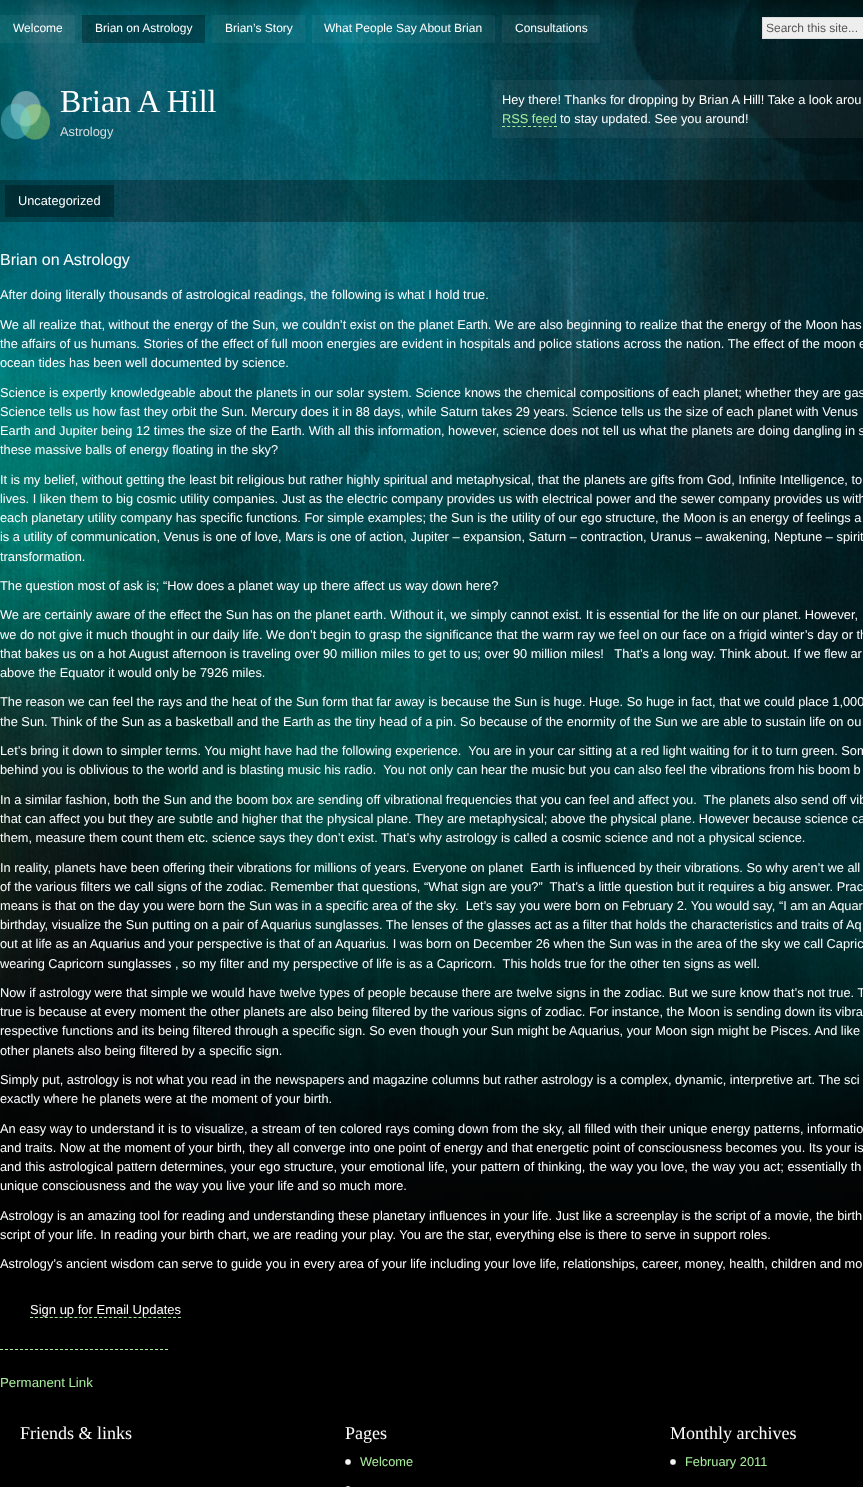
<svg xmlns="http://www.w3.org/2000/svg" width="863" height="1487">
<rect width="100%" height="100%" fill="#000"/>
<image x="0" y="0" width="863" height="1224" href="media/1.png"/>
<rect y="15" width="75" height="28" fill="#ffffff0d"/>
<text x="13" y="32" style="font-family:Liberation Sans;font-size:12px;fill:#fff">Welcome</text>
<rect x="82" y="15" width="123" height="28" fill="#0000004d"/>
<text x="95" y="32" style="font-family:Liberation Sans;font-size:12px;fill:#fff">Brian on Astrology</text>
<rect x="212" y="15" width="93" height="28" fill="#ffffff0d"/>
<text x="225" y="32" style="font-family:Liberation Sans;font-size:12px;fill:#fff">Brian’s Story</text>
<rect x="312" y="15" width="183" height="28" fill="#ffffff0d"/>
<text x="324" y="32" style="font-family:Liberation Sans;font-size:12px;fill:#fff">What People Say About Brian</text>
<rect x="502" y="15" width="98" height="28" fill="#ffffff0d"/>
<text x="515" y="32" style="font-family:Liberation Sans;font-size:12px;fill:#fff">Consultations</text>
<rect x="762.5" y="17.5" width="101" height="21" fill="#eee" stroke="#ddd"/>
<text x="766" y="32" style="font-family:Liberation Sans;font-size:12px;fill:#555">Search this site...</text>
<image x="0" y="90" width="50" height="50" href="media/2.png"/>
<text x="60" y="112" style="font-family:Liberation Serif;font-size:32px;fill:#fff">Brian A Hill</text>
<text x="60" y="136" style="font-family:Liberation Sans;font-size:12.8px;fill:#ddd">Astrology</text>
<rect x="492" y="80" width="371" height="58" fill="#ffffff0d"/>
<text x="502" y="104" style="font-family:Liberation Sans;font-size:12.8px;fill:#fff">Hey there! Thanks for dropping by Brian A Hill! Take a look arou</text>
<text x="502" y="123" style="font-family:Liberation Sans;font-size:12.8px;fill:#a8ef9d">RSS feed</text>
<path d="M502 126.5h55" fill="none" stroke="#a8ef9d" stroke-dasharray="3 2.2"/>
<text x="560" y="123" style="font-family:Liberation Sans;font-size:12.8px;fill:#fff">to stay updated. See you around!</text>
<rect y="180" width="863" height="42" fill="#0000004d"/>
<rect x="5" y="185" width="109" height="32" fill="#0000004d"/>
<text x="18" y="205" style="font-family:Liberation Sans;font-size:12.8px;fill:#fff">Uncategorized</text>
<text x="0" y="265" style="font-family:Liberation Sans;font-size:16px;fill:#fff">Brian on Astrology</text>
<text x="0" y="299" style="font-family:Liberation Sans;font-size:12.8px;fill:#fff">After doing literally thousands of astrological readings, the following is what I hold true.</text>
<text x="0" y="329" style="font-family:Liberation Sans;font-size:12.8px;fill:#fff">We all realize that, without the energy of the Sun, we couldn’t exist on the planet Earth. We are also beginning to realize that the energy of the Moon has</text>
<text x="0" y="348" style="font-family:Liberation Sans;font-size:12.8px;fill:#fff">the affairs of us humans. Stories of the effect of full moon energies are evident in hospitals and police stations across the nation. The effect of the moon e</text>
<text x="0" y="367" style="font-family:Liberation Sans;font-size:12.8px;fill:#fff">ocean tides has been well documented by science.</text>
<text x="0" y="397" style="font-family:Liberation Sans;font-size:12.8px;fill:#fff">Science is expertly knowledgeable about the planets in our solar system. Science knows the chemical compositions of each planet; whether they are gas</text>
<text x="0" y="416" style="font-family:Liberation Sans;font-size:12.8px;fill:#fff">Science tells us how fast they orbit the Sun. Mercury does it in 88 days, while Saturn takes 29 years. Science tells us the size of each planet with Venus</text>
<text x="0" y="435" style="font-family:Liberation Sans;font-size:12.8px;fill:#fff">Earth and Jupiter being 12 times the size of the Earth. With all this information, however, science does not tell us what the planets are doing dangling in s</text>
<text x="0" y="454" style="font-family:Liberation Sans;font-size:12.8px;fill:#fff">these massive balls of energy floating in the sky?</text>
<text x="0" y="484" style="font-family:Liberation Sans;font-size:12.8px;fill:#fff">It is my belief, without getting the least bit religious but rather highly spiritual and metaphysical, that the planets are gifts from God, Infinite Intelligence, to</text>
<text x="0" y="503" style="font-family:Liberation Sans;font-size:12.8px;fill:#fff">lives. I liken them to big cosmic utility companies. Just as the electric company provides us with electrical power and the sewer company provides us with</text>
<text x="0" y="522" style="font-family:Liberation Sans;font-size:12.8px;fill:#fff">each planetary utility company has specific functions. For simple examples; the Sun is the utility of our ego structure, the Moon is an energy of feelings a</text>
<text x="0" y="541" style="font-family:Liberation Sans;font-size:12.8px;fill:#fff">is a utility of communication, Venus is one of love, Mars is one of action, Jupiter – expansion, Saturn – contraction, Uranus – awakening, Neptune – spirit</text>
<text x="0" y="561" style="font-family:Liberation Sans;font-size:12.8px;fill:#fff">transformation.</text>
<text x="0" y="590" style="font-family:Liberation Sans;font-size:12.8px;fill:#fff">The question most of ask is; “How does a planet way up there affect us way down here?</text>
<text x="0" y="619" style="font-family:Liberation Sans;font-size:12.8px;fill:#fff">We are certainly aware of the effect the Sun has on the planet earth. Without it, we simply cannot exist. It is essential for the life on our planet. However,</text>
<text x="0" y="639" style="font-family:Liberation Sans;font-size:12.8px;fill:#fff">we do not give it much thought in our daily life. We don’t begin to grasp the significance that the warm ray we feel on our face on a frigid winter’s day or th</text>
<text x="0" y="658" style="font-family:Liberation Sans;font-size:12.8px;fill:#fff" xml:space="preserve">that bakes us on a hot August afternoon is traveling over 90 million miles to get to us; over 90 million miles!   That’s a long way. Think about. If we flew ar</text>
<text x="0" y="677" style="font-family:Liberation Sans;font-size:12.8px;fill:#fff">above the Equator it would only be 7926 miles.</text>
<text x="0" y="706" style="font-family:Liberation Sans;font-size:12.8px;fill:#fff">The reason we can feel the rays and the heat of the Sun form that far away is because the Sun is huge. Huge. So huge in fact, that we could place 1,000</text>
<text x="0" y="726" style="font-family:Liberation Sans;font-size:12.8px;fill:#fff">the Sun. Think of the Sun as a basketball and the Earth as the tiny head of a pin. So because of the enormity of the Sun we are able to sustain life on ou</text>
<text x="0" y="755" style="font-family:Liberation Sans;font-size:12.8px;fill:#fff" xml:space="preserve">Let’s bring it down to simpler terms. You might have had the following experience.  You are in your car sitting at a red light waiting for it to turn green. Som</text>
<text x="0" y="774" style="font-family:Liberation Sans;font-size:12.8px;fill:#fff" xml:space="preserve">behind you is oblivious to the world and is blasting music his radio.  You not only can hear the music but you can also feel the vibrations from his boom b</text>
<text x="0" y="804" style="font-family:Liberation Sans;font-size:12.8px;fill:#fff" xml:space="preserve">In a similar fashion, both the Sun and the boom box are sending off vibrational frequencies that you can feel and affect you.  The planets also send off vib</text>
<text x="0" y="823" style="font-family:Liberation Sans;font-size:12.8px;fill:#fff">that can affect you but they are subtle and higher that the physical plane. They are metaphysical; above the physical plane. However because science ca</text>
<text x="0" y="842" style="font-family:Liberation Sans;font-size:12.8px;fill:#fff">them, measure them count them etc. science says they don’t exist. That’s why astrology is called a cosmic science and not a physical science.</text>
<text x="0" y="872" style="font-family:Liberation Sans;font-size:12.8px;fill:#fff" xml:space="preserve">In reality, planets have been offering their vibrations for millions of years. Everyone on planet  Earth is influenced by their vibrations. So why aren’t we all</text>
<text x="0" y="891" style="font-family:Liberation Sans;font-size:12.8px;fill:#fff" xml:space="preserve">of the various filters we call signs of the zodiac. Remember that questions, “What sign are you?”  That’s a little question but it requires a big answer. Prac</text>
<text x="0" y="910" style="font-family:Liberation Sans;font-size:12.8px;fill:#fff" xml:space="preserve">means is that on the day you were born the Sun was in a specific area of the sky.  Let’s say you were born on February 2. You would say, “I am an Aquar</text>
<text x="0" y="929" style="font-family:Liberation Sans;font-size:12.8px;fill:#fff">birthday, visualize the Sun putting on a pair of Aquarius sunglasses. The lenses of the glasses act as a filter that holds the characteristics and traits of Aq</text>
<text x="0" y="948" style="font-family:Liberation Sans;font-size:12.8px;fill:#fff">out at life as an Aquarius and your perspective is that of an Aquarius. I was born on December 26 when the Sun was in the area of the sky we call Capric</text>
<text x="0" y="968" style="font-family:Liberation Sans;font-size:12.8px;fill:#fff" xml:space="preserve">wearing Capricorn sunglasses , so my filter and my perspective of life is as a Capricorn.  This holds true for the other ten signs as well.</text>
<text x="0" y="997" style="font-family:Liberation Sans;font-size:12.8px;fill:#fff">Now if astrology were that simple we would have twelve types of people because there are twelve signs in the zodiac. But we sure know that’s not true. T</text>
<text x="0" y="1016" style="font-family:Liberation Sans;font-size:12.8px;fill:#fff">true is because at every moment the other planets are also being filtered by the various signs of zodiac. For instance, the Moon is sending down its vibra</text>
<text x="0" y="1035" style="font-family:Liberation Sans;font-size:12.8px;fill:#fff">respective functions and its being filtered through a specific sign. So even though your Sun might be Aquarius, your Moon sign might be Pisces. And like</text>
<text x="0" y="1055" style="font-family:Liberation Sans;font-size:12.8px;fill:#fff">other planets also being filtered by a specific sign.</text>
<text x="0" y="1084" style="font-family:Liberation Sans;font-size:12.8px;fill:#fff">Simply put, astrology is not what you read in the newspapers and magazine columns but rather astrology is a complex, dynamic, interpretive art. The sci</text>
<text x="0" y="1103" style="font-family:Liberation Sans;font-size:12.8px;fill:#fff">exactly where he planets were at the moment of your birth.</text>
<text x="0" y="1133" style="font-family:Liberation Sans;font-size:12.8px;fill:#fff">An easy way to understand it is to visualize, a stream of ten colored rays coming down from the sky, all filled with their unique energy patterns, informatio</text>
<text x="0" y="1152" style="font-family:Liberation Sans;font-size:12.8px;fill:#fff">and traits. Now at the moment of your birth, they all converge into one point of energy and that energetic point of consciousness becomes you. Its your is</text>
<text x="0" y="1171" style="font-family:Liberation Sans;font-size:12.8px;fill:#fff">and this astrological pattern determines, your ego structure, your emotional life, your pattern of thinking, the way you love, the way you act; essentially th</text>
<text x="0" y="1190" style="font-family:Liberation Sans;font-size:12.8px;fill:#fff">unique consciousness and the way you live your life and so much more.</text>
<text x="0" y="1220" style="font-family:Liberation Sans;font-size:12.8px;fill:#fff">Astrology is an amazing tool for reading and understanding these planetary influences in your life. Just like a screenplay is the script of a movie, the birth</text>
<text x="0" y="1239" style="font-family:Liberation Sans;font-size:12.8px;fill:#fff">script of your life. In reading your birth chart, we are reading your play. You are the star, everything else is there to serve in support roles.</text>
<text x="0" y="1268" style="font-family:Liberation Sans;font-size:12.8px;fill:#fff">Astrology’s ancient wisdom can serve to guide you in every area of your life including your love life, relationships, career, money, health, children and mo</text>
<text x="30" y="1314" style="font-family:Liberation Sans;font-size:13px;fill:#fff">Sign up for Email Updates</text>
<path d="M30 1317.5h151" fill="none" stroke="#a8ef9d" stroke-dasharray="3 1.93"/>
<path d="M0 1349.5h168" fill="none" stroke="#a8ef9d" stroke-dasharray="3 2"/>
<text x="0" y="1387" style="font-family:Liberation Sans;font-size:13.25px;fill:#a8ef9d">Permanent Link</text>
<text x="20" y="1439" style="font-family:Liberation Serif;font-size:18px;fill:#fff">Friends &amp; links</text>
<text x="345" y="1439" style="font-family:Liberation Serif;font-size:18px;fill:#fff">Pages</text>
<image x="345" y="1459" width="6" height="6" href="media/3.png"/>
<text x="360" y="1466" style="font-family:Liberation Sans;font-size:12.8px;fill:#a8ef9d">Welcome</text>
<image x="345" y="1486" width="6" height="1" href="media/4.png"/>
<text x="670" y="1439" style="font-family:Liberation Serif;font-size:18px;fill:#fff">Monthly archives</text>
<image x="670" y="1459" width="6" height="6" href="media/3.png"/>
<text x="685" y="1466" style="font-family:Liberation Sans;font-size:12.8px;fill:#a8ef9d">February 2011</text>
</svg>
